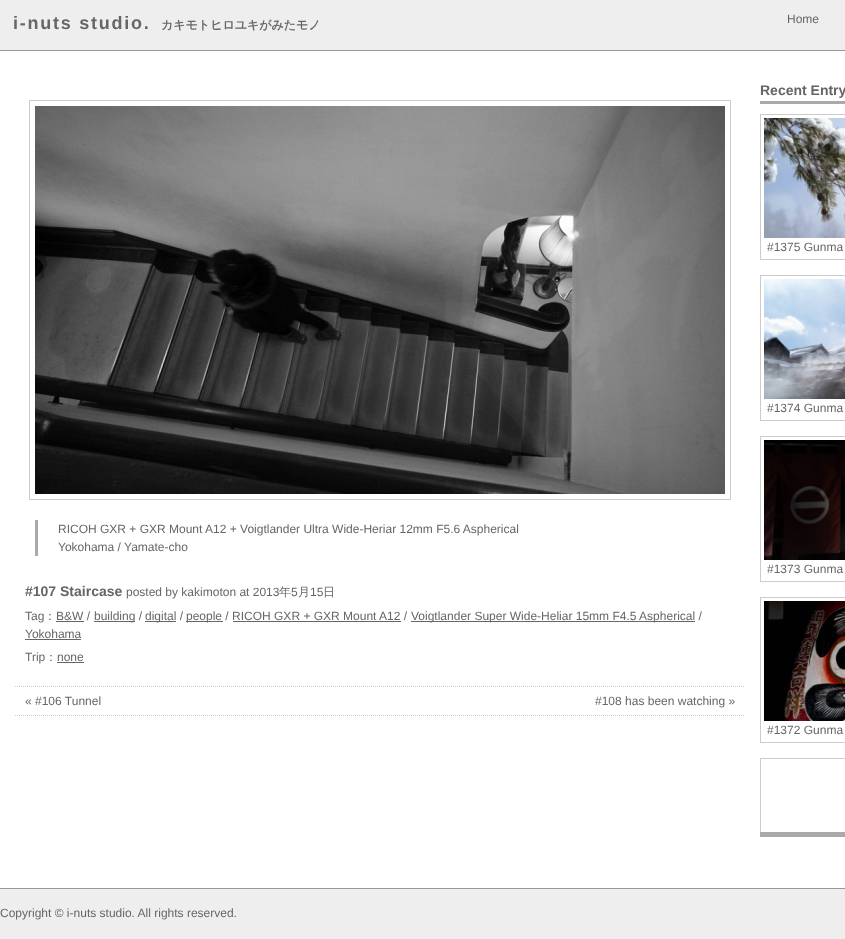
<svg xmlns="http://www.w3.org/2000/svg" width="845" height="939">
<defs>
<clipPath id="clip1"><rect x="760" y="114" width="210" height="718"/></clipPath>
</defs>
<rect width="100%" height="100%" fill="#fff"/>
<rect width="845" height="50" fill="#eee"/>
<rect y="50" width="845" height="1" fill="#999"/>
<text x="13" y="29" style="font-family:Liberation Sans;font-size:18px;font-weight:bold;letter-spacing:1.75px;fill:#666">i-nuts studio.</text>
<text x="161" y="29" style="font-family:WenQuanYi Zen Hei;font-size:12px;font-weight:bold;fill:#666">カキモトヒロユキがみたモノ</text>
<text x="787" y="23" style="font-family:Liberation Sans;font-size:12px;fill:#666">Home</text>
<rect x="29.5" y="100.5" width="701" height="399" fill="none" stroke="#ccc"/>
<image x="35" y="106" width="690" height="388" href="media/1.png"/>
<rect x="35" y="520" width="3" height="36" fill="#aaa"/>
<text x="58" y="533" style="font-family:Liberation Sans;font-size:12px;fill:#666">RICOH GXR + GXR Mount A12 + Voigtlander Ultra Wide-Heriar 12mm F5.6 Aspherical</text>
<text x="58" y="551" style="font-family:Liberation Sans;font-size:12px;fill:#666">Yokohama / Yamate-cho</text>
<text x="25" y="596" style="font-family:Liberation Sans;font-size:14px;font-weight:bold;fill:#666">#107 Staircase</text>
<text x="126" y="596" style="font-family:Liberation Sans;font-size:12px;fill:#666">posted by kakimoton at 2013</text>
<text x="279" y="596" style="font-family:WenQuanYi Zen Hei;font-size:12px;font-weight:500;fill:#666">年</text>
<text x="291" y="596" style="font-family:Liberation Sans;font-size:12px;fill:#666">5</text>
<text x="298" y="596" style="font-family:WenQuanYi Zen Hei;font-size:12px;font-weight:500;fill:#666">月</text>
<text x="310" y="596" style="font-family:Liberation Sans;font-size:12px;fill:#666">15</text>
<text x="323" y="596" style="font-family:WenQuanYi Zen Hei;font-size:12px;font-weight:500;fill:#666">日</text>
<text x="25" y="620" style="font-family:Liberation Sans;font-size:12px;fill:#666">Tag</text>
<text x="44" y="620" style="font-family:WenQuanYi Zen Hei;font-size:12px;font-weight:500;fill:#666">：</text>
<text x="56" y="620" style="font-family:Liberation Sans;font-size:12px;fill:#666">B&amp;W /</text>
<rect x="56" y="621" width="28" height="1" fill="#666"/>
<rect x="94" y="621" width="41" height="1" fill="#666"/>
<text x="94" y="620" style="font-family:Liberation Sans;font-size:12px;fill:#666">building /</text>
<rect x="145" y="621" width="31" height="1" fill="#666"/>
<text x="145" y="620" style="font-family:Liberation Sans;font-size:12px;fill:#666">digital /</text>
<rect x="186" y="621" width="37" height="1" fill="#666"/>
<text x="186" y="620" style="font-family:Liberation Sans;font-size:12px;fill:#666">people / RICOH GXR + GXR Mount A12 /</text>
<rect x="411" y="621" width="284" height="1" fill="#666"/>
<text x="411" y="620" style="font-family:Liberation Sans;font-size:12px;fill:#666">Voigtlander Super Wide-Heliar 15mm F4.5 Aspherical /</text>
<rect x="233" y="621" width="168" height="1" fill="#666"/>
<text x="25" y="638" style="font-family:Liberation Sans;font-size:12px;fill:#666">Yokohama</text>
<rect x="25" y="639" width="56" height="1" fill="#666"/>
<text x="25" y="661" style="font-family:Liberation Sans;font-size:12px;fill:#666">Trip</text>
<text x="45" y="661" style="font-family:WenQuanYi Zen Hei;font-size:12px;font-weight:500;fill:#666">：</text>
<text x="57" y="661" style="font-family:Liberation Sans;font-size:12px;fill:#666">none</text>
<rect x="57" y="662" width="27" height="1" fill="#666"/>
<path d="M15 686.5h730" fill="none" stroke="#ccc" stroke-dasharray="1 1"/>
<path d="M15 715.5h730" fill="none" stroke="#ccc" stroke-dasharray="1 1"/>
<text x="25" y="705" style="font-family:Liberation Sans;font-size:12px;fill:#666">« #106 Tunnel</text>
<text x="595" y="705" style="font-family:Liberation Sans;font-size:12px;fill:#666">#108 has been watching »</text>
<rect x="760" y="101" width="85" height="3" fill="#aaa"/>
<text x="760" y="95" style="font-family:Liberation Sans;font-size:14px;font-weight:bold;fill:#666">Recent Entry</text>
<rect x="760" y="832" width="85" height="5" fill="#aaa"/>
<rect x="760.5" y="114.5" width="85" height="145" fill="none" stroke="#ccc"/>
<image x="764" y="118" width="81" height="120" href="media/2.png"/>
<text x="767" y="251" style="font-family:Liberation Sans;font-size:12px;fill:#666">#1375 Gunma</text>
<rect x="760.5" y="275.5" width="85" height="145" fill="none" stroke="#ccc"/>
<image x="764" y="279" width="81" height="120" href="media/3.png"/>
<text x="767" y="412" style="font-family:Liberation Sans;font-size:12px;fill:#666">#1374 Gunma</text>
<rect x="760.5" y="436.5" width="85" height="145" fill="none" stroke="#ccc"/>
<image x="764" y="440" width="81" height="120" href="media/4.png"/>
<text x="767" y="573" style="font-family:Liberation Sans;font-size:12px;fill:#666">#1373 Gunma</text>
<rect x="760.5" y="597.5" width="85" height="145" fill="none" stroke="#ccc"/>
<image x="764" y="601" width="81" height="120" href="media/5.png"/>
<text x="767" y="734" style="font-family:Liberation Sans;font-size:12px;fill:#666">#1372 Gunma</text>
<g clip-path="url(#clip1)">
<rect x="760.5" y="758.5" width="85" height="145" fill="none" stroke="#ccc"/>
</g>
<rect y="889" width="845" height="50" fill="#eee"/>
<rect y="888" width="845" height="1" fill="#999"/>
<text x="0" y="917" style="font-family:Liberation Sans;font-size:12px;fill:#666">Copyright © i-nuts studio. All rights reserved.</text>
</svg>
